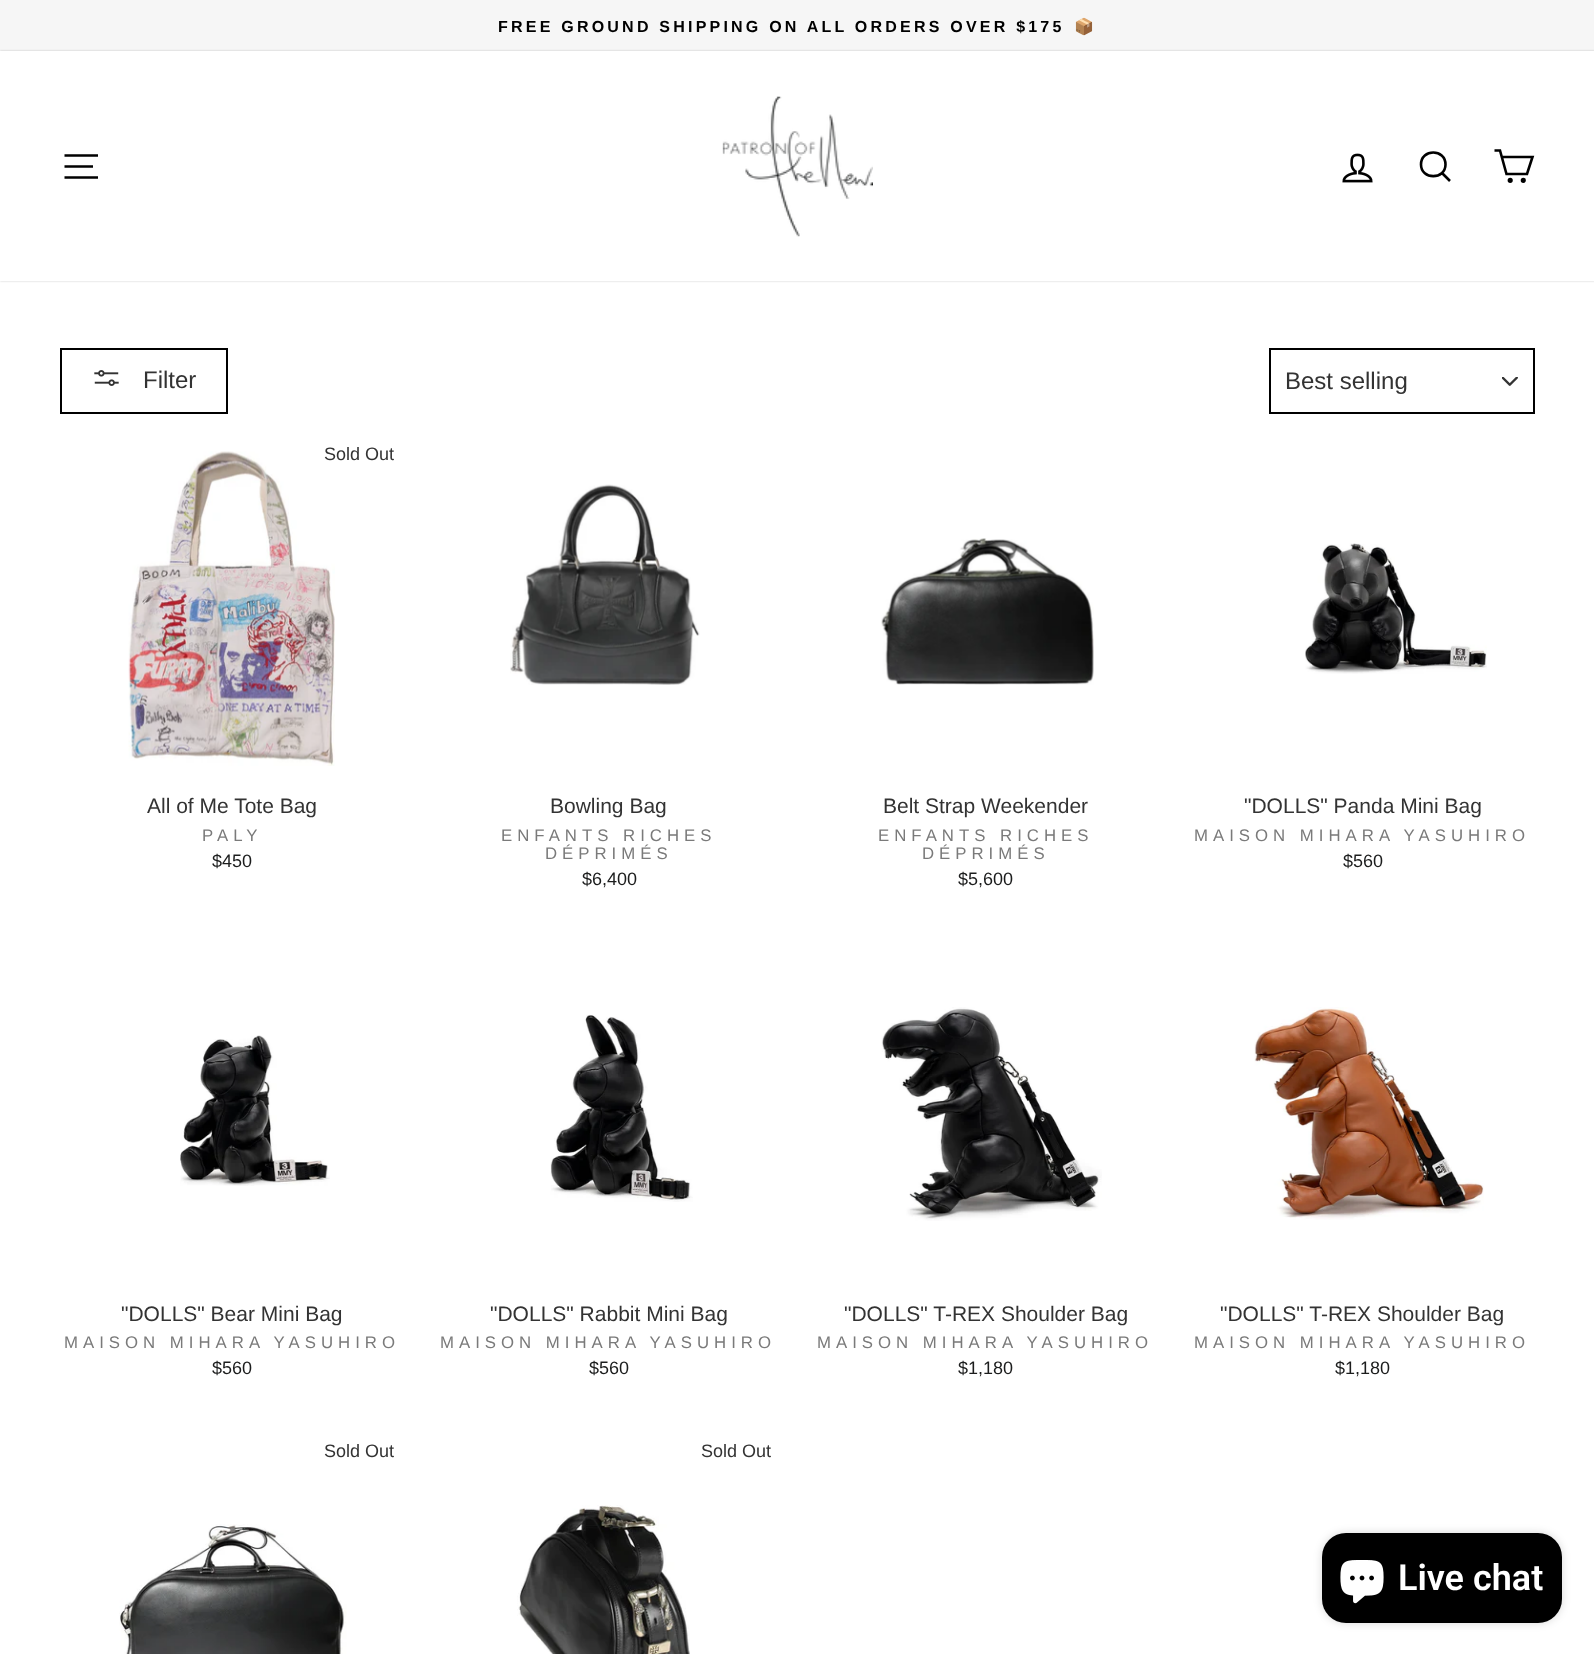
<svg xmlns="http://www.w3.org/2000/svg" width="1594" height="1654">
<rect width="100%" height="100%" fill="#fff"/>
<rect width="1594" height="51" fill="#f6f6f6"/>
<text x="498" y="32" style="font-family:Liberation Sans;font-size:16.05px;font-weight:bold;letter-spacing:3.2px;fill:#000">FREE GROUND SHIPPING ON ALL ORDERS OVER $175</text>
<text x="1074" y="32" style="font-family:Noto Color Emoji;font-size:16.05px;font-weight:bold;letter-spacing:3.2px;fill:#000">📦</text>
<rect y="51" width="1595" height="230" fill="#00000033" filter="blur(1px)"/>
<rect y="51" width="1594" height="230" fill="#fff"/>
<path d="M64.5 155.5h33.5m-33.5 11h28.5m-28.5 11h33.5" fill="none" stroke="#000" stroke-width="2.6"/>
<image x="722" y="96" width="151" height="141" href="media/1.png"/>
<image x="1342" y="153" width="31" height="30" href="media/2.png"/>
<path d="M1445.5 164.5c0 15.5-24.5 15.5-24.5 0c0-16 24.5-16 24.5 0zm4.5 16.5l-8-8" fill="none" stroke="#000" stroke-width="2.6"/>
<path d="M1501.5 157h31l-5.5 17h-20.5l-6.5-23.5h-5.5" fill="none" stroke="#000" stroke-width="2.6"/>
<circle cx="1510.2" cy="180.3" r="1.3" fill="none" stroke="#000" stroke-width="2.6"/>
<circle cx="1523.3" cy="180.3" r="1.3" fill="none" stroke="#000" stroke-width="2.6"/>
<rect x="61" y="349" width="166" height="64" fill="none" stroke="#000" stroke-width="2"/>
<image x="94" y="370" width="25" height="16" href="media/3.png"/>
<text x="143" y="388" style="font-family:Liberation Sans;font-size:24px;fill:#333">Filter</text>
<image x="1502" y="377" width="16" height="9" href="media/4.png"/>
<rect x="1270" y="349" width="264" height="64" fill="none" stroke="#000" stroke-width="2"/>
<text x="1285" y="389" style="font-family:Liberation Sans;font-size:24px;fill:#333">Best selling</text>
<image x="128" y="451" width="207" height="315" href="media/5.png"/>
<text x="324" y="460" style="font-family:Liberation Sans;font-size:18px;fill:#333">Sold Out</text>
<text x="147" y="813" style="font-family:Liberation Sans;font-size:21px;fill:#333">All of Me Tote Bag</text>
<text x="202" y="841" style="font-family:Liberation Sans;font-size:16.8px;letter-spacing:5px;fill:#7a7a7a">PALY</text>
<text x="212" y="867" style="font-family:Liberation Sans;font-size:18px;fill:#1c1d1d">$450</text>
<image x="510" y="484" width="190" height="201" href="media/6.png"/>
<text x="550" y="813" style="font-family:Liberation Sans;font-size:21px;fill:#333">Bowling Bag</text>
<text x="501" y="841" style="font-family:Liberation Sans;font-size:16.8px;letter-spacing:5px;fill:#7a7a7a">ENFANTS RICHES</text>
<text x="545" y="859" style="font-family:Liberation Sans;font-size:16.8px;letter-spacing:5px;fill:#7a7a7a">DÉPRIMÉS</text>
<text x="582" y="885" style="font-family:Liberation Sans;font-size:18px;fill:#1c1d1d">$6,400</text>
<image x="881" y="538" width="213" height="147" href="media/7.png"/>
<text x="883" y="813" style="font-family:Liberation Sans;font-size:21px;fill:#333">Belt Strap Weekender</text>
<text x="878" y="841" style="font-family:Liberation Sans;font-size:16.8px;letter-spacing:5px;fill:#7a7a7a">ENFANTS RICHES</text>
<text x="922" y="859" style="font-family:Liberation Sans;font-size:16.8px;letter-spacing:5px;fill:#7a7a7a">DÉPRIMÉS</text>
<text x="958" y="885" style="font-family:Liberation Sans;font-size:18px;fill:#1c1d1d">$5,600</text>
<image x="1305" y="543" width="182" height="131" href="media/8.png"/>
<text x="1244" y="813" style="font-family:Liberation Sans;font-size:21px;fill:#333">"DOLLS" Panda Mini Bag</text>
<text x="1194" y="841" style="font-family:Liberation Sans;font-size:16.8px;letter-spacing:5px;fill:#7a7a7a">MAISON MIHARA YASUHIRO</text>
<text x="1343" y="867" style="font-family:Liberation Sans;font-size:18px;fill:#1c1d1d">$560</text>
<image x="180" y="1035" width="150" height="151" href="media/9.png"/>
<text x="121" y="1321" style="font-family:Liberation Sans;font-size:21px;fill:#333">"DOLLS" Bear Mini Bag</text>
<text x="64" y="1348" style="font-family:Liberation Sans;font-size:16.8px;letter-spacing:5px;fill:#7a7a7a">MAISON MIHARA YASUHIRO</text>
<text x="212" y="1374" style="font-family:Liberation Sans;font-size:18px;fill:#1c1d1d">$560</text>
<image x="550" y="1014" width="143" height="188" href="media/10.png"/>
<text x="490" y="1321" style="font-family:Liberation Sans;font-size:21px;fill:#333">"DOLLS" Rabbit Mini Bag</text>
<text x="440" y="1348" style="font-family:Liberation Sans;font-size:16.8px;letter-spacing:5px;fill:#7a7a7a">MAISON MIHARA YASUHIRO</text>
<text x="589" y="1374" style="font-family:Liberation Sans;font-size:18px;fill:#1c1d1d">$560</text>
<image x="881" y="1007" width="221" height="214" href="media/11.png"/>
<text x="844" y="1321" style="font-family:Liberation Sans;font-size:21px;fill:#333">"DOLLS" T-REX Shoulder Bag</text>
<text x="817" y="1348" style="font-family:Liberation Sans;font-size:16.8px;letter-spacing:5px;fill:#7a7a7a">MAISON MIHARA YASUHIRO</text>
<text x="958" y="1374" style="font-family:Liberation Sans;font-size:18px;fill:#1c1d1d">$1,180</text>
<image x="1254" y="1007" width="230" height="213" href="media/12.png"/>
<text x="1220" y="1321" style="font-family:Liberation Sans;font-size:21px;fill:#333">"DOLLS" T-REX Shoulder Bag</text>
<text x="1194" y="1348" style="font-family:Liberation Sans;font-size:16.8px;letter-spacing:5px;fill:#7a7a7a">MAISON MIHARA YASUHIRO</text>
<text x="1335" y="1374" style="font-family:Liberation Sans;font-size:18px;fill:#1c1d1d">$1,180</text>
<text x="324" y="1457" style="font-family:Liberation Sans;font-size:18px;fill:#333">Sold Out</text>
<image x="119" y="1524" width="228" height="130" href="media/13.png"/>
<text x="701" y="1457" style="font-family:Liberation Sans;font-size:18px;fill:#333">Sold Out</text>
<image x="517" y="1505" width="173" height="149" href="media/14.png"/>
<rect x="1322" y="1533" width="240" height="90" rx="24" fill="#00000026" filter="blur(4px)"/>
<rect x="1322" y="1533" width="240" height="90" rx="24" fill="#000"/>
<image x="1340" y="1560" width="44" height="44" href="media/15.png"/>
<text x="1398" y="1590" style="font-family:Roboto;font-size:36px;font-weight:600;fill:#fff">Live chat</text>
</svg>
